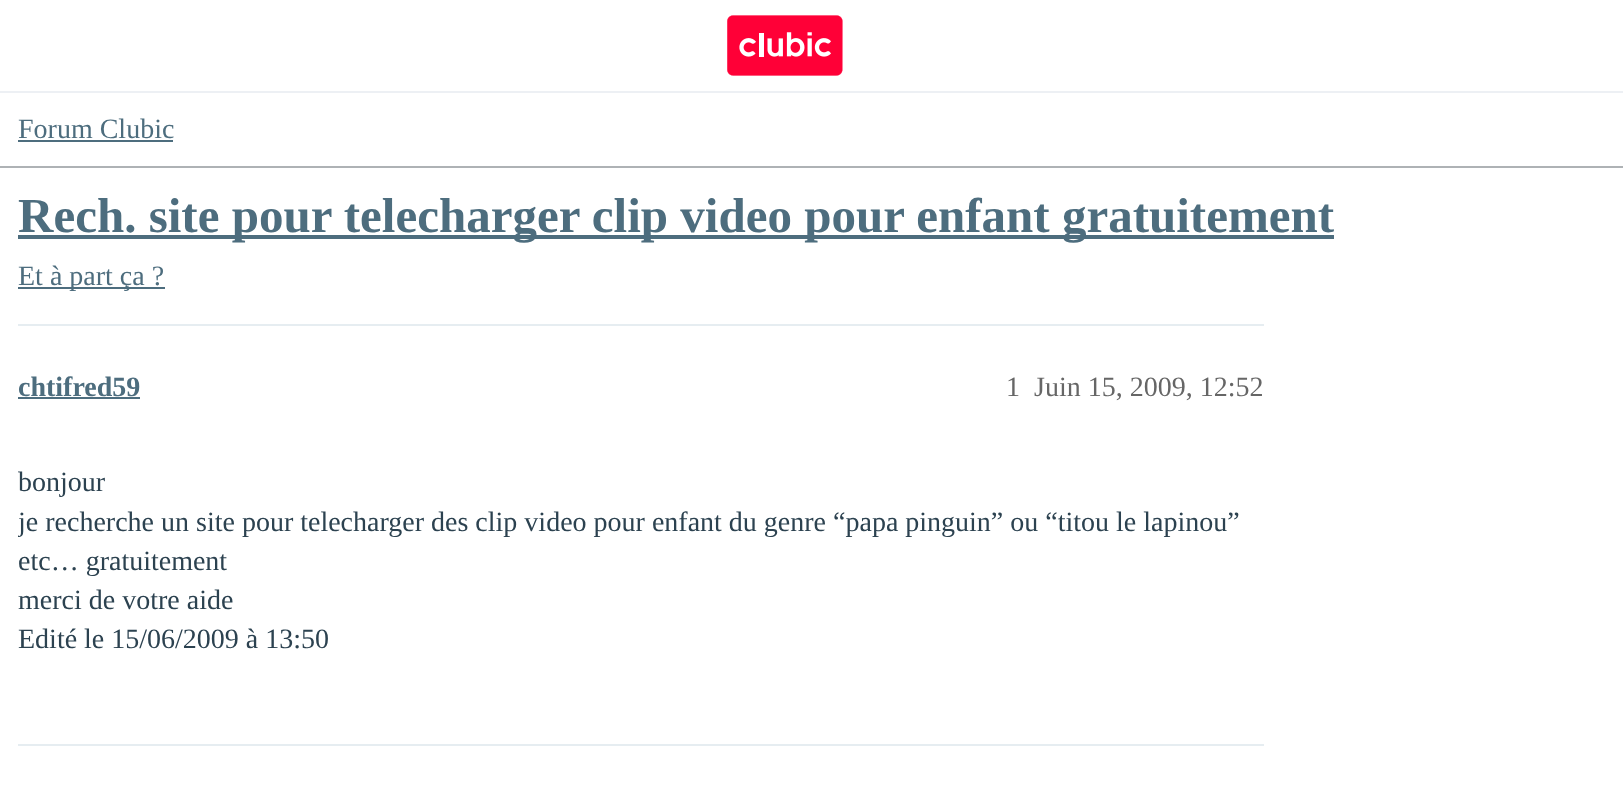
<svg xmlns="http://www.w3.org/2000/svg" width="1623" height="787">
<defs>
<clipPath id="clip1"><rect x="18" y="436" width="1246" height="252"/></clipPath>
</defs>
<rect width="100%" height="100%" fill="#fff"/>
<rect y="91" width="1623" height="2" fill="#edf0f4"/>
<image x="727" y="15" width="116" height="61" href="media/1.png"/>
<rect y="166" width="1623" height="2" fill="#aeb2b5"/>
<text x="18" y="138" style="font-family:Liberation Serif;font-size:28px;fill:#4d6d7e">Forum Clubic</text>
<rect x="18" y="140" width="155" height="2" fill="#4d6d7e"/>
<rect x="18" y="235" width="1316" height="4" fill="#4d6d7e"/>
<text x="18" y="232" style="font-family:Liberation Serif;font-size:49px;font-weight:bold;fill:#4d6d7e">Rech. site pour telecharger clip video pour enfant gratuitement</text>
<rect x="18" y="287" width="147" height="2" fill="#4d6d7e"/>
<text x="18" y="285" style="font-family:Liberation Serif;font-size:28px;fill:#4d6d7e">Et à part ça ?</text>
<rect x="18" y="324" width="1246" height="2" fill="#e6edf1"/>
<text x="18" y="396" style="font-family:Liberation Serif;font-size:28px;font-weight:bold;fill:#4d6d7e">chtifred59</text>
<rect x="18" y="397" width="122" height="2" fill="#4d6d7e"/>
<text x="1006" y="396" style="font-family:Liberation Serif;font-size:28px;fill:#666">1</text>
<text x="1034" y="396" style="font-family:Liberation Serif;font-size:28px;fill:#666">Juin 15, 2009, 12:52</text>
<text x="18" y="491" style="font-family:Liberation Serif;font-size:28px;fill:#2c4250">bonjour</text>
<g clip-path="url(#clip1)">
<text x="18" y="531" style="font-family:Liberation Serif;font-size:28px;fill:#2c4250">je recherche un site pour telecharger des clip video pour enfant du genre “papa pinguin” ou “titou le lapinou”</text>
</g>
<text x="18" y="570" style="font-family:Liberation Serif;font-size:28px;fill:#2c4250">etc… gratuitement</text>
<text x="18" y="609" style="font-family:Liberation Serif;font-size:28px;fill:#2c4250">merci de votre aide</text>
<text x="18" y="648" style="font-family:Liberation Serif;font-size:28px;fill:#2c4250">Edité le 15/06/2009 à 13:50</text>
<rect x="18" y="744" width="1246" height="2" fill="#e6edf1"/>
</svg>
